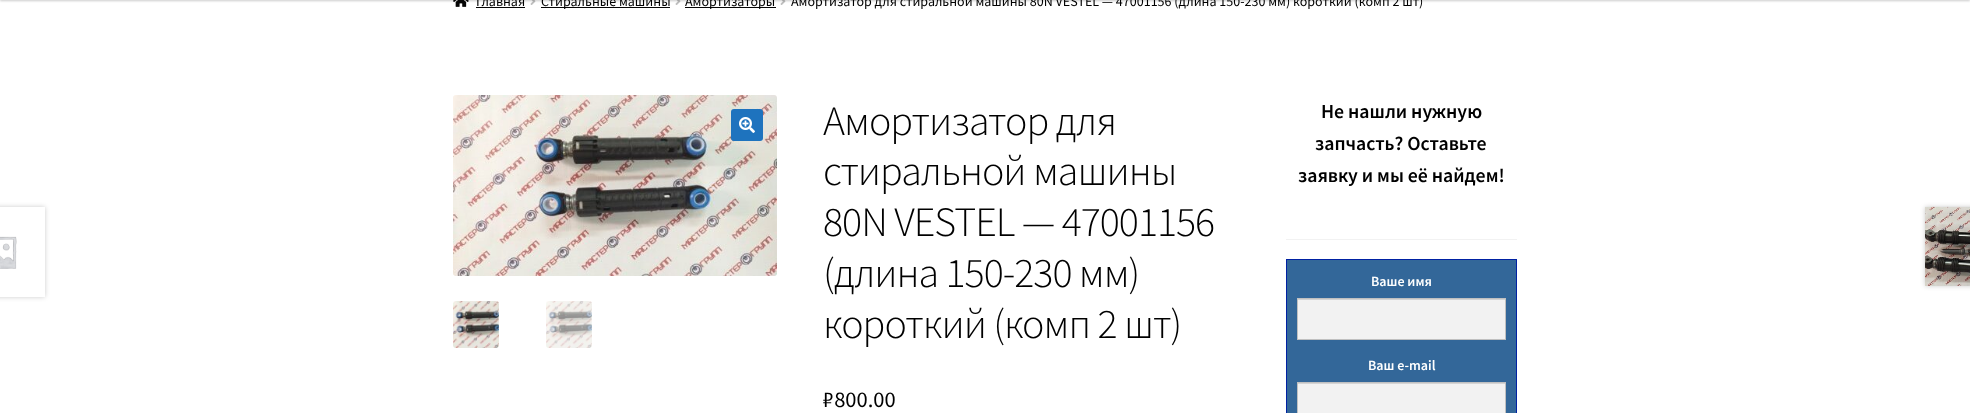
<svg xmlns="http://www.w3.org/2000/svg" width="1970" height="413">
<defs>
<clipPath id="clip1"><path d="M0 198h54v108h-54zm-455 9h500v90h-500z" clip-rule="evenodd"/></clipPath>
</defs>
<rect width="100%" height="100%" fill="#fff"/>
<image x="453" y="0" width="16" height="7" href="media/1.png"/>
<image x="530" y="0" width="6" height="5" href="media/2.png"/>
<image x="675" y="0" width="6" height="5" href="media/2.png"/>
<image x="780" y="0" width="6" height="5" href="media/2.png"/>
<rect y="-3" width="1970" height="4" fill="#00000033" filter="blur(1px)"/>
<text x="476" y="6" style="font-family:Source Sans Pro;font-size:14px;fill:#000">Главная</text>
<rect x="476" y="7" width="49" height="1" fill="#050505"/>
<rect x="541" y="7" width="129" height="1" fill="#050505"/>
<text x="541" y="6" style="font-family:Source Sans Pro;font-size:14px;fill:#000">Стиральные машины</text>
<rect x="685" y="7" width="91" height="1" fill="#050505"/>
<text x="685" y="6" style="font-family:Source Sans Pro;font-size:14px;fill:#000">Амортизаторы</text>
<text x="791" y="6" style="font-family:Source Sans Pro;font-size:14px;fill:#000">Амортизатор для стиральной машины 80N VESTEL — 47001156 (длина 150-230 мм) короткий (комп 2 шт)</text>
<image x="453" y="95" width="324" height="181" href="media/3.png"/>
<rect x="731" y="109" width="32" height="32" rx="3" fill="#1e73be"/>
<image x="739" y="117" width="16" height="16" href="media/4.png"/>
<image x="453" y="301" width="46" height="47" href="media/5.png"/>
<image x="546" y="301" width="46" height="47" href="media/6.png"/>
<text x="823" y="135" style="font-family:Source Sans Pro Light;font-size:41.9px;font-weight:300;letter-spacing:-1px;fill:#000">Амортизатор для</text>
<text x="823" y="185" style="font-family:Source Sans Pro Light;font-size:41.9px;font-weight:300;letter-spacing:-1px;fill:#000">стиральной машины</text>
<text x="823" y="236" style="font-family:Source Sans Pro Light;font-size:41.9px;font-weight:300;letter-spacing:-1px;fill:#000">80N VESTEL — 47001156</text>
<text x="823" y="287" style="font-family:Source Sans Pro Light;font-size:41.9px;font-weight:300;letter-spacing:-1px;fill:#000">(длина 150-230 мм)</text>
<text x="823" y="338" style="font-family:Source Sans Pro Light;font-size:41.9px;font-weight:300;letter-spacing:-1px;fill:#000">короткий (комп 2 шт)</text>
<text x="823" y="407" style="font-family:Source Sans Pro;font-size:22.5px;fill:#000">₽800.00</text>
<g clip-path="url(#clip1)">
<rect x="-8" y="207" width="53" height="90" fill="#00000033" filter="blur(2.5px)"/>
</g>
<image x="0" y="236" width="17" height="33" href="media/7.png"/>
<rect x="1925" y="207" width="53" height="79" fill="#00000033" filter="blur(2.5px)"/>
<image x="1925" y="206" width="45" height="80" href="media/8.png"/>
<rect x="1286" y="239" width="231" height="1" fill="#f2f2f2"/>
<text x="1321" y="118" style="font-family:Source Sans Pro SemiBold;font-size:19.75px;font-weight:600;fill:#000">Не нашли нужную</text>
<text x="1315" y="150" style="font-family:Source Sans Pro SemiBold;font-size:19.75px;font-weight:600;fill:#000">запчасть? Оставьте</text>
<text x="1298" y="182" style="font-family:Source Sans Pro SemiBold;font-size:19.75px;font-weight:600;fill:#000">заявку и мы её найдем!</text>
<rect x="1286.5" y="259.5" width="230" height="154" fill="#336799" stroke="#0021a3"/>
<text x="1371" y="286" style="font-family:Source Sans Pro SemiBold;font-size:14px;font-weight:600;fill:#fff">Ваше имя</text>
<rect x="1298" y="300" width="207" height="39" fill="#f2f2f2"/>
<rect x="1298" y="299" width="207" height="1" fill="#d4d4d4"/>
<rect x="1297.5" y="298.5" width="208" height="41" fill="none" stroke="#c0c0c0"/>
<text x="1368" y="370" style="font-family:Source Sans Pro SemiBold;font-size:14px;font-weight:600;fill:#fff">Ваш e-mail</text>
<rect x="1298" y="384" width="207" height="29" fill="#f2f2f2"/>
<rect x="1298" y="383" width="207" height="1" fill="#d4d4d4"/>
<rect x="1297.5" y="382.5" width="208" height="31" fill="none" stroke="#c0c0c0"/>
</svg>
